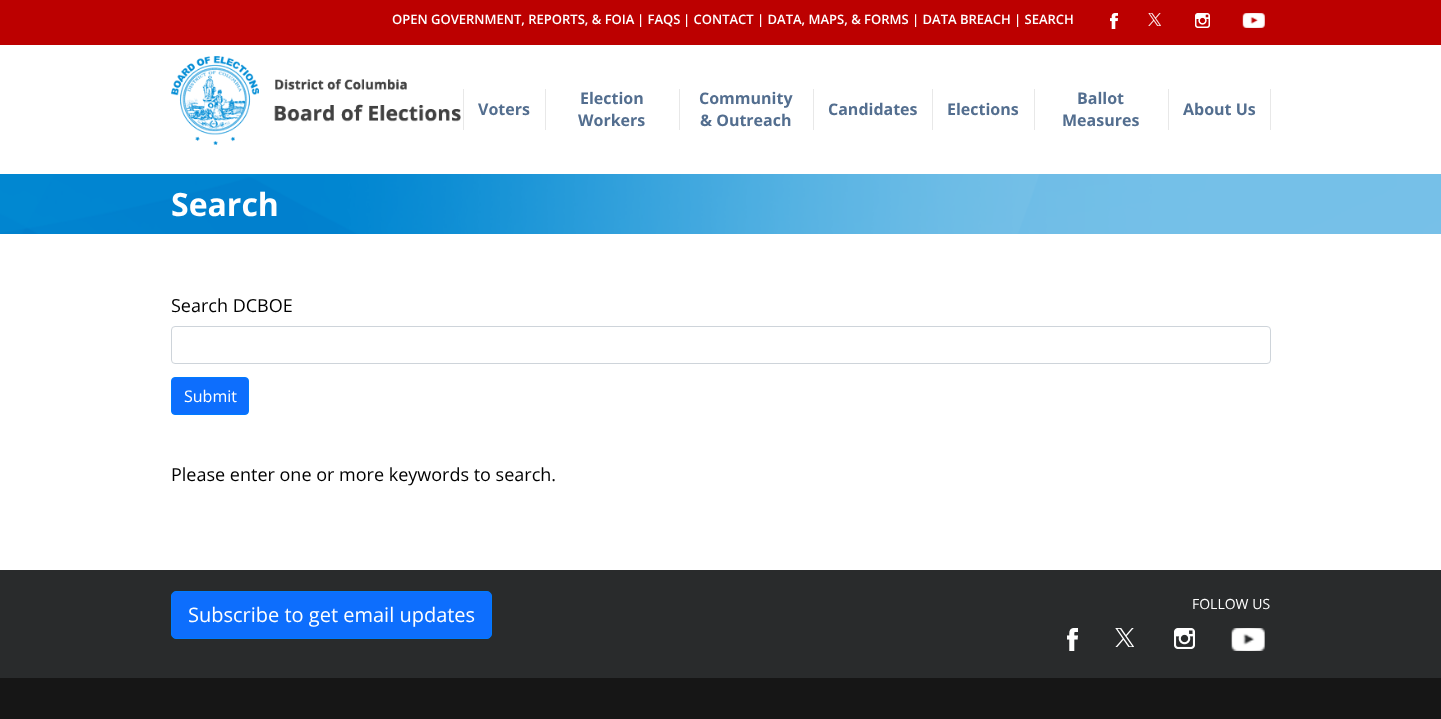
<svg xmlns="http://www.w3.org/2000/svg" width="1441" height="719">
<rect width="100%" height="100%" fill="#fff"/>
<rect width="1441" height="45" fill="#bc0000"/>
<text x="392" y="24" style="font-family:Open Sans;font-size:13px;font-weight:600;fill:#fff">OPEN GOVERNMENT, REPORTS, &amp; FOIA</text>
<text x="637" y="24" style="font-family:Open Sans;font-size:13px;font-weight:600;fill:#fff">| FAQS</text>
<text x="683" y="24" style="font-family:Open Sans;font-size:13px;font-weight:600;fill:#fff">| CONTACT</text>
<text x="757" y="24" style="font-family:Open Sans;font-size:13px;font-weight:600;fill:#fff">| DATA, MAPS, &amp; FORMS</text>
<text x="912" y="24" style="font-family:Open Sans;font-size:13px;font-weight:600;fill:#fff">| DATA BREACH</text>
<text x="1014" y="24" style="font-family:Open Sans;font-size:13px;font-weight:600;fill:#fff">| SEARCH</text>
<image x="1110" y="13" width="8" height="16" href="media/1.png"/>
<image x="1148" y="13" width="13" height="13" href="media/2.png"/>
<image x="1195" y="13" width="15" height="15" href="media/3.png"/>
<image x="1242" y="13" width="23" height="15" href="media/4.png"/>
<image x="171" y="56" width="290" height="89" href="media/5.png"/>
<rect x="463" y="89" width="1" height="41" fill="#e8e8e8"/>
<text x="478" y="115" style="font-family:Open Sans;font-size:16px;font-weight:bold;fill:#536e8f">Voters</text>
<rect x="545" y="89" width="1" height="41" fill="#e8e8e8"/>
<text x="580" y="104" style="font-family:Open Sans;font-size:16px;font-weight:bold;fill:#536e8f">Election</text>
<text x="578" y="126" style="font-family:Open Sans;font-size:16px;font-weight:bold;fill:#536e8f">Workers</text>
<rect x="679" y="89" width="1" height="41" fill="#e8e8e8"/>
<text x="699" y="104" style="font-family:Open Sans;font-size:16px;font-weight:bold;fill:#536e8f">Community</text>
<text x="700" y="126" style="font-family:Open Sans;font-size:16px;font-weight:bold;fill:#536e8f">&amp; Outreach</text>
<rect x="813" y="89" width="1" height="41" fill="#e8e8e8"/>
<text x="828" y="115" style="font-family:Open Sans;font-size:16px;font-weight:bold;fill:#536e8f">Candidates</text>
<rect x="932" y="89" width="1" height="41" fill="#e8e8e8"/>
<text x="947" y="115" style="font-family:Open Sans;font-size:16px;font-weight:bold;fill:#536e8f">Elections</text>
<rect x="1034" y="89" width="1" height="41" fill="#e8e8e8"/>
<text x="1077" y="104" style="font-family:Open Sans;font-size:16px;font-weight:bold;fill:#536e8f">Ballot</text>
<text x="1062" y="126" style="font-family:Open Sans;font-size:16px;font-weight:bold;fill:#536e8f">Measures</text>
<rect x="1168" y="89" width="1" height="41" fill="#e8e8e8"/>
<text x="1183" y="115" style="font-family:Open Sans;font-size:16px;font-weight:bold;fill:#536e8f">About Us</text>
<rect x="1270" y="89" width="1" height="41" fill="#e8e8e8"/>
<image x="0" y="174" width="1441" height="60" href="media/6.png"/>
<text x="171" y="216" style="font-family:Open Sans;font-size:32px;font-weight:bold;fill:#fff">Search</text>
<text x="171" y="312" style="font-family:Open Sans;font-size:18px;fill:#000">Search DCBOE</text>
<rect x="171.5" y="326.5" width="1099" height="37" rx="3.5" fill="none" stroke="#ced4da"/>
<rect x="171.5" y="377.5" width="77" height="37" rx="3.5" fill="#0d6efd" stroke="#007bff"/>
<text x="184" y="402" style="font-family:Open Sans;font-size:16px;fill:#fff">Submit</text>
<text x="171" y="481" style="font-family:Open Sans;font-size:18px;fill:#000">Please enter one or more keywords to search.</text>
<rect y="570" width="1441" height="108" fill="#292b2c"/>
<text x="1192" y="609" style="font-family:Open Sans;font-size:14px;fill:#fff">FOLLOW US</text>
<image x="1067" y="628" width="11" height="23" href="media/7.png"/>
<image x="1115" y="628" width="19" height="19" href="media/8.png"/>
<image x="1174" y="628" width="21" height="21" href="media/9.png"/>
<image x="1231" y="628" width="34" height="23" href="media/10.png"/>
<rect x="171.5" y="591.5" width="320" height="47" rx="4.5" fill="#0d6efd" stroke="#007bff"/>
<text x="188" y="622" style="font-family:Open Sans;font-size:20px;fill:#fff">Subscribe to get email updates</text>
<rect y="678" width="1441" height="41" fill="#161616"/>
</svg>
